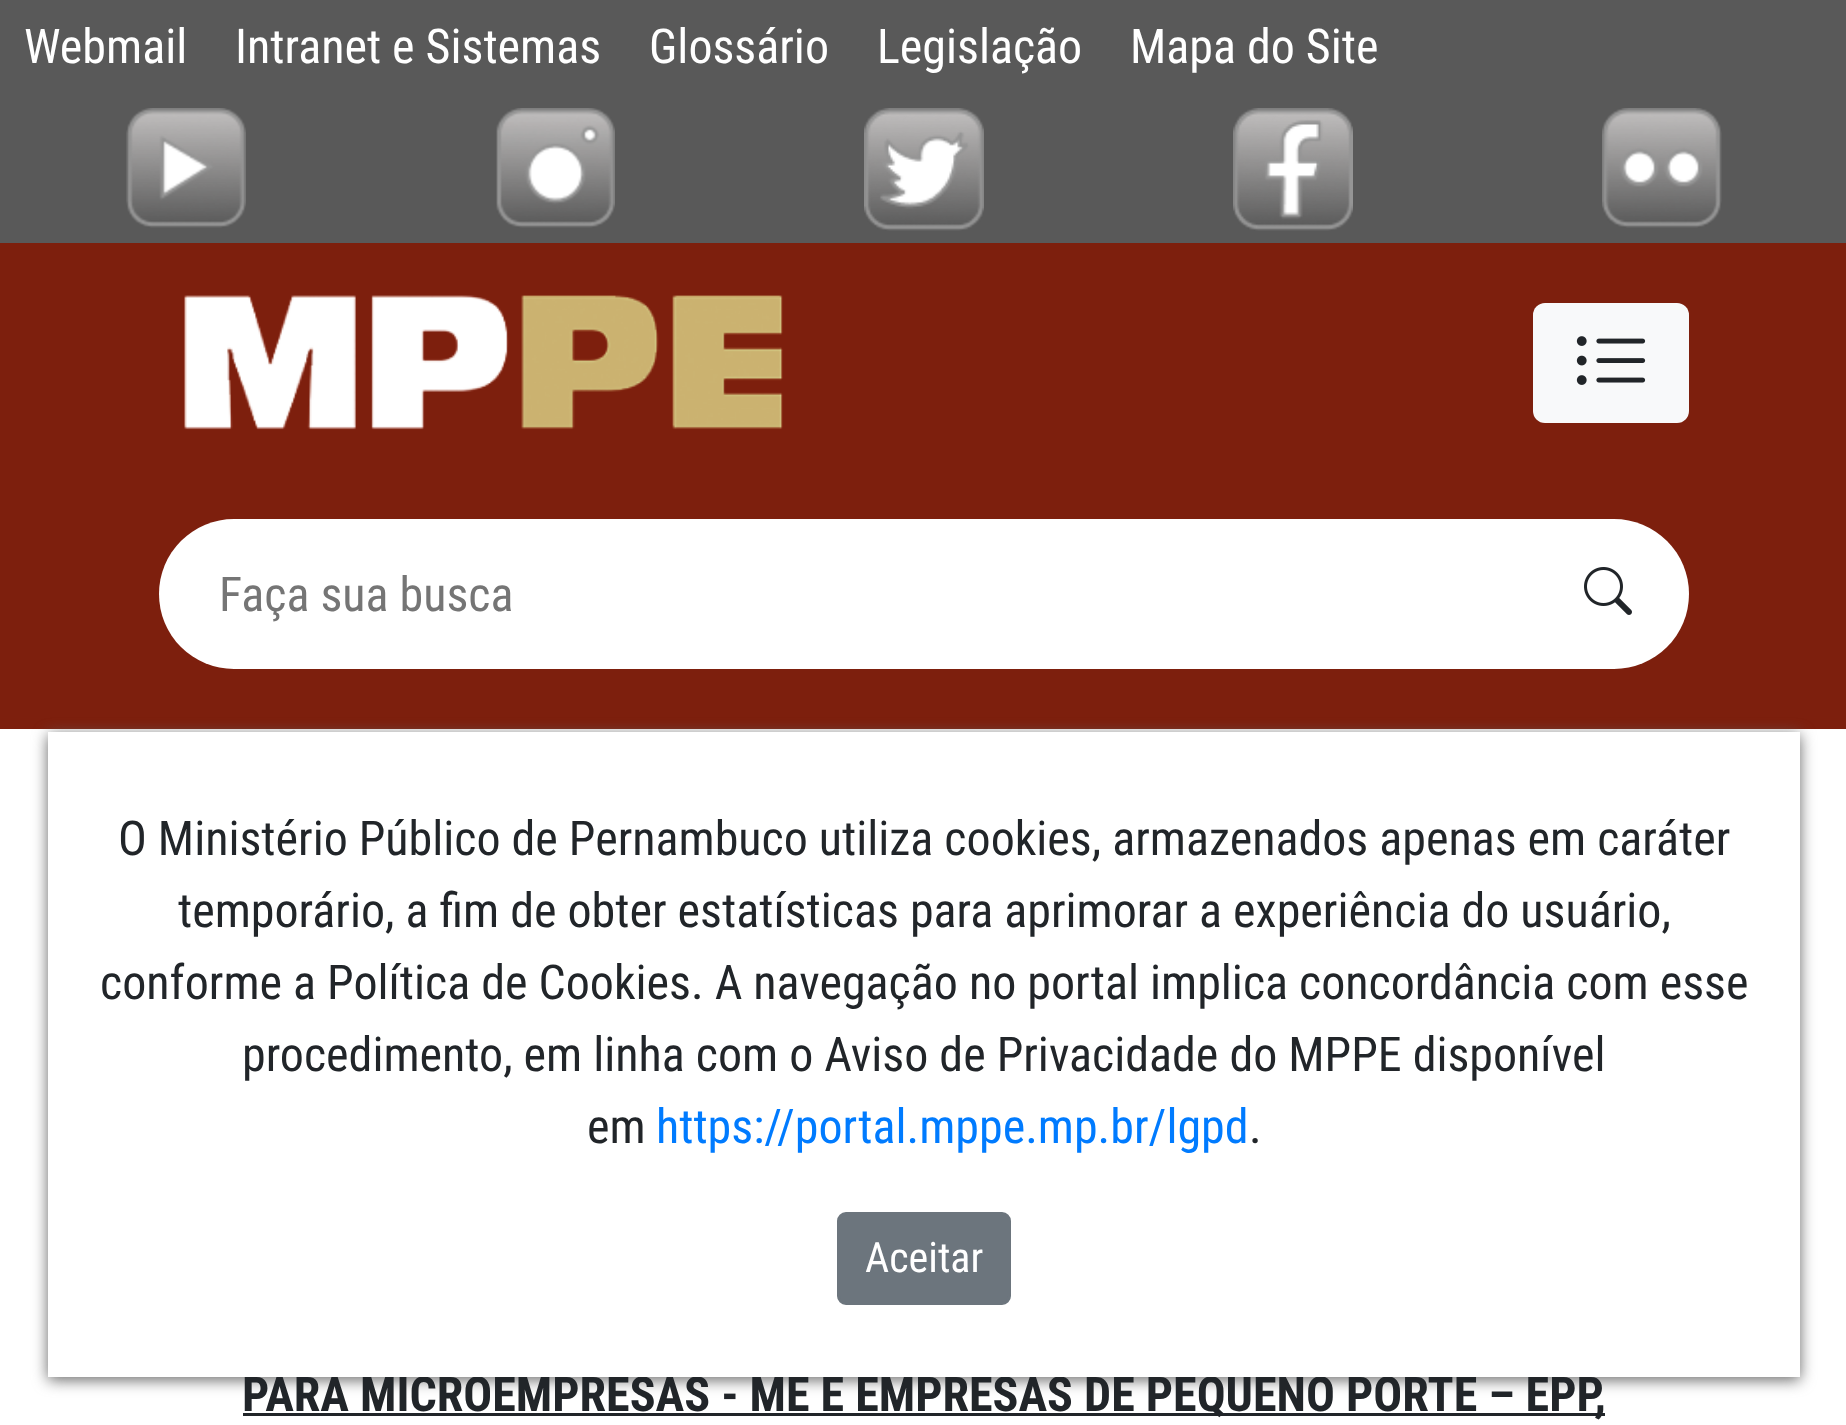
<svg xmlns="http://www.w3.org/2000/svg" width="1846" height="1425">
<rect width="100%" height="100%" fill="#fff"/>
<rect width="1846" height="243" fill="#595959"/>
<text x="24" y="63" style="font-family:Roboto Condensed;font-size:48px;fill:#fff">Webmail</text>
<text x="235" y="63" style="font-family:Roboto Condensed;font-size:48px;fill:#fff">Intranet e Sistemas</text>
<text x="649" y="63" style="font-family:Roboto Condensed;font-size:48px;fill:#fff">Glossário</text>
<text x="877" y="63" style="font-family:Roboto Condensed;font-size:48px;fill:#fff">Legislação</text>
<text x="1130" y="63" style="font-family:Roboto Condensed;font-size:48px;fill:#fff">Mapa do Site</text>
<image x="126" y="108" width="120" height="120" href="media/1.png"/>
<image x="496" y="108" width="119" height="120" href="media/2.png"/>
<image x="864" y="108" width="120" height="123" href="media/3.png"/>
<image x="1233" y="108" width="120" height="123" href="media/4.png"/>
<image x="1602" y="108" width="120" height="120" href="media/5.png"/>
<rect y="243" width="1846" height="486" fill="#7d1f0d"/>
<image x="184" y="295" width="599" height="135" href="media/6.png"/>
<rect x="1533" y="303" width="156" height="120" rx="12" fill="#f8f9fa"/>
<image x="1576" y="336" width="70" height="49" href="media/7.png"/>
<rect x="159" y="519" width="1530" height="150" rx="75" fill="#fff"/>
<text x="219" y="611" style="font-family:Roboto Condensed;font-size:48px;fill:#757575">Faça sua busca</text>
<image x="1584" y="567" width="48" height="48" href="media/8.png"/>
<rect x="48" y="735" width="1752" height="645" fill="#676767" filter="blur(7.5px)"/>
<rect x="243" y="1413" width="1362" height="3" fill="#212529"/>
<text x="242" y="1411" style="font-family:Roboto Condensed;font-size:48px;font-weight:bold;fill:#212529">PARA MICROEMPRESAS - ME E EMPRESAS DE PEQUENO PORTE – EPP,</text>
<rect x="48" y="732" width="1752" height="645" fill="#fff"/>
<text x="118" y="855" style="font-family:Roboto Condensed;font-size:48px;fill:#212529">O Ministério Público de Pernambuco utiliza cookies, armazenados apenas em caráter</text>
<text x="178" y="927" style="font-family:Roboto Condensed;font-size:48px;fill:#212529">temporário, a fim de obter estatísticas para aprimorar a experiência do usuário,</text>
<text x="100" y="999" style="font-family:Roboto Condensed;font-size:48px;fill:#212529">conforme a Política de Cookies. A navegação no portal implica concordância com esse</text>
<text x="242" y="1071" style="font-family:Roboto Condensed;font-size:48px;fill:#212529">procedimento, em linha com o Aviso de Privacidade do MPPE disponível</text>
<text x="587" y="1143" style="font-family:Roboto Condensed;font-size:48px;fill:#212529">em</text>
<text x="656" y="1143" style="font-family:Roboto Condensed;font-size:48px;fill:#007bff">https://portal.mppe.mp.br/lgpd</text>
<text x="1249" y="1143" style="font-family:Roboto Condensed;font-size:48px;fill:#212529">.</text>
<rect x="838.5" y="1213.5" width="171" height="90" rx="7.5" fill="#6c757d" stroke="#6c757d" stroke-width="3"/>
<text x="865" y="1272" style="font-family:Roboto Condensed;font-size:42px;fill:#fff">Aceitar</text>
</svg>
